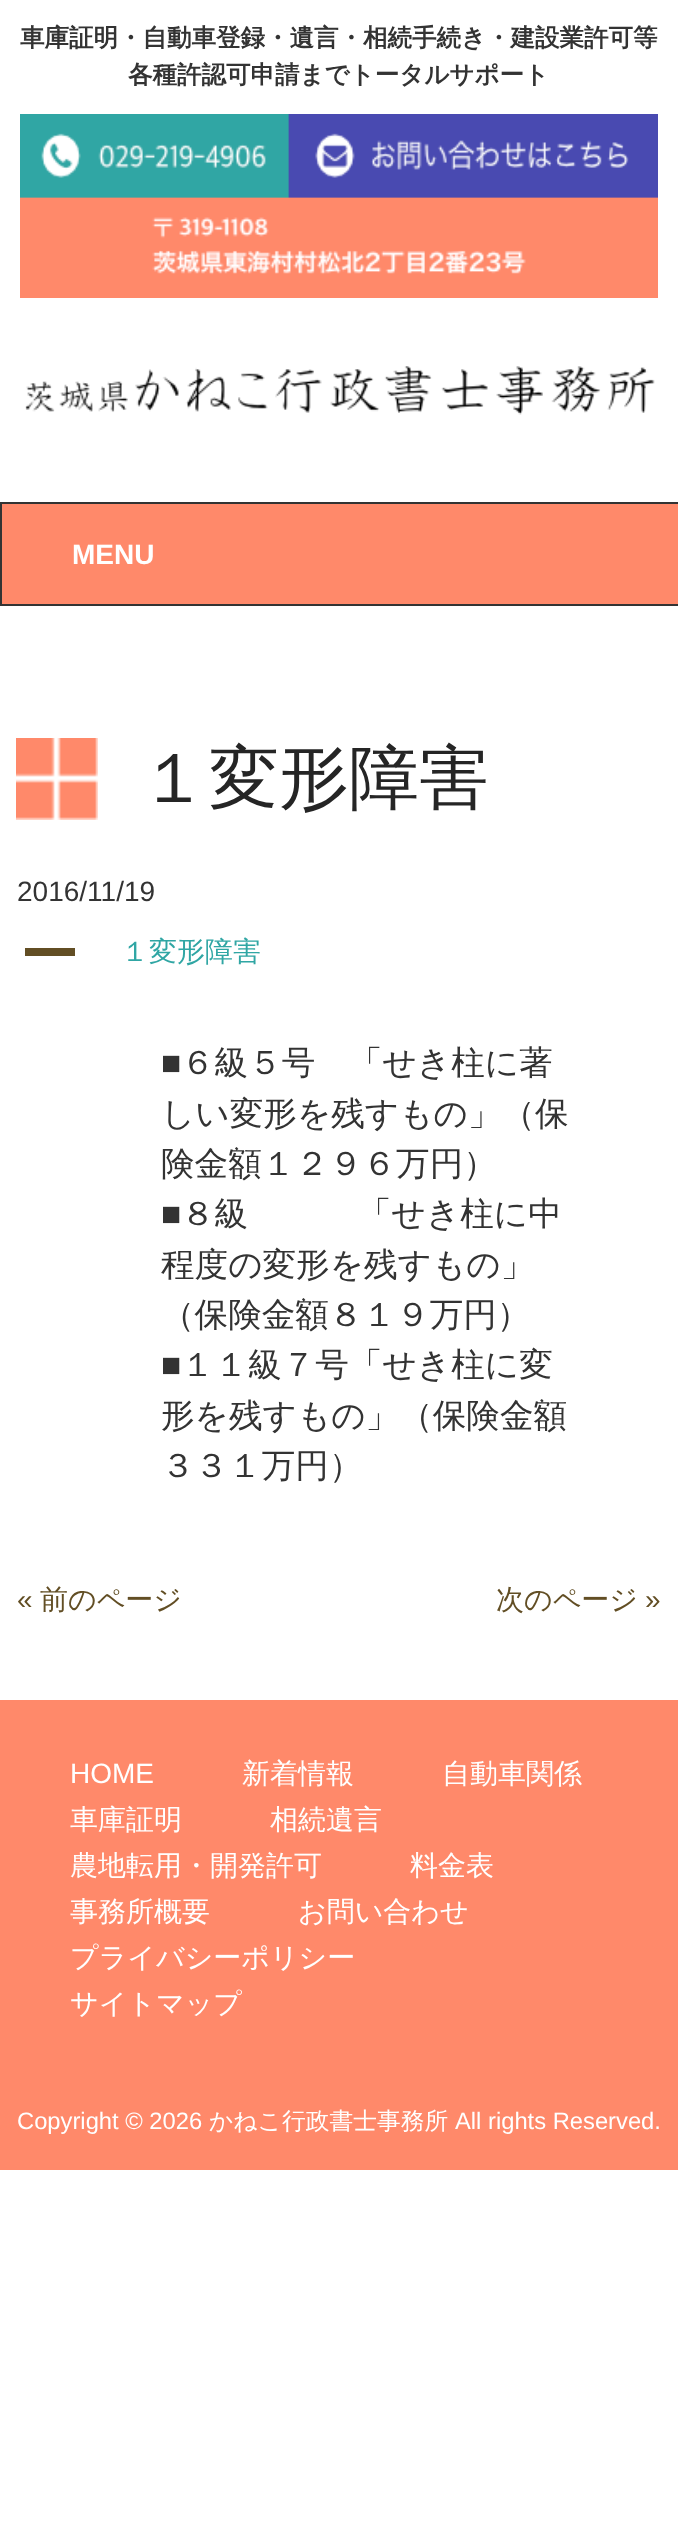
<svg xmlns="http://www.w3.org/2000/svg" width="678" height="2530">
<rect width="100%" height="100%" fill="#fff"/>
<text x="20" y="46" style="font-family:WenQuanYi Zen Hei;font-size:24.5px;font-weight:bold;fill:#333">車庫証明・自動車登録・遺言・相続手続き・建設業許可等</text>
<text x="128" y="83" style="font-family:WenQuanYi Zen Hei;font-size:24.5px;font-weight:bold;fill:#333">各種許認可申請までトータルサポート</text>
<image x="20" y="114" width="638" height="184" href="media/1.png"/>
<image x="25" y="366" width="630" height="49" href="media/2.png"/>
<rect x="1" y="503" width="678" height="102" fill="#ff896a" stroke="#333" stroke-width="2"/>
<text x="72" y="564" style="font-family:Liberation Sans;font-size:28px;font-weight:bold;fill:#fff">MENU</text>
<image x="16" y="738" width="82" height="82" href="media/3.png"/>
<text x="139" y="802" style="font-family:WenQuanYi Zen Hei;font-size:70px;font-weight:500;fill:#252525">１変形障害</text>
<text x="17" y="901" style="font-family:Liberation Sans;font-size:28px;fill:#333">2016/11/19</text>
<rect x="25" y="948" width="50" height="8" fill="#624e24"/>
<text x="121" y="961" style="font-family:WenQuanYi Zen Hei;font-size:28px;font-weight:500;fill:#30a6a4">１変形障害</text>
<text x="161" y="1074" style="font-family:Liberation Sans;font-size:33.6px;fill:#333">■</text>
<text x="181" y="1074" style="font-family:WenQuanYi Zen Hei;font-size:33.6px;font-weight:500;fill:#333">６級５号　「せき柱に著</text>
<text x="161" y="1125" style="font-family:WenQuanYi Zen Hei;font-size:33.6px;font-weight:500;fill:#333">しい変形を残すもの」（保</text>
<text x="161" y="1175" style="font-family:WenQuanYi Zen Hei;font-size:33.6px;font-weight:500;fill:#333">険金額１２９６万円）</text>
<text x="161" y="1225" style="font-family:Liberation Sans;font-size:33.6px;fill:#333">■</text>
<text x="181" y="1225" word-spacing="-1" style="font-family:WenQuanYi Zen Hei;font-size:33.6px;font-weight:500;fill:#333">８級　 　　「せき柱に中</text>
<text x="161" y="1276" style="font-family:WenQuanYi Zen Hei;font-size:33.6px;font-weight:500;fill:#333">程度の変形を残すもの」</text>
<text x="161" y="1326" style="font-family:WenQuanYi Zen Hei;font-size:33.6px;font-weight:500;fill:#333">（保険金額８１９万円）</text>
<text x="161" y="1376" style="font-family:Liberation Sans;font-size:33.6px;fill:#333">■</text>
<text x="181" y="1376" style="font-family:WenQuanYi Zen Hei;font-size:33.6px;font-weight:500;fill:#333">１１級７号「せき柱に変</text>
<text x="161" y="1427" style="font-family:WenQuanYi Zen Hei;font-size:33.6px;font-weight:500;fill:#333">形を残すもの」（保険金額</text>
<text x="161" y="1477" style="font-family:WenQuanYi Zen Hei;font-size:33.6px;font-weight:500;fill:#333">３３１万円）</text>
<text x="17" y="1609" style="font-family:Liberation Sans;font-size:28px;fill:#624e24">«</text>
<text x="40" y="1609" style="font-family:WenQuanYi Zen Hei;font-size:28px;font-weight:500;fill:#624e24">前のページ</text>
<text x="496" y="1609" style="font-family:WenQuanYi Zen Hei;font-size:28px;font-weight:500;fill:#624e24">次のページ</text>
<text x="645" y="1609" style="font-family:Liberation Sans;font-size:28px;fill:#624e24">»</text>
<rect y="1700" width="678" height="470" fill="#ff896a"/>
<text x="70" y="1783" style="font-family:Liberation Sans;font-size:28px;fill:#fff">HOME</text>
<text x="242" y="1783" style="font-family:WenQuanYi Zen Hei;font-size:28px;font-weight:500;fill:#fff">新着情報</text>
<text x="442" y="1783" style="font-family:WenQuanYi Zen Hei;font-size:28px;font-weight:500;fill:#fff">自動車関係</text>
<text x="70" y="1829" style="font-family:WenQuanYi Zen Hei;font-size:28px;font-weight:500;fill:#fff">車庫証明</text>
<text x="270" y="1829" style="font-family:WenQuanYi Zen Hei;font-size:28px;font-weight:500;fill:#fff">相続遺言</text>
<text x="70" y="1875" style="font-family:WenQuanYi Zen Hei;font-size:28px;font-weight:500;fill:#fff">農地転用・開発許可</text>
<text x="410" y="1875" style="font-family:WenQuanYi Zen Hei;font-size:28px;font-weight:500;fill:#fff">料金表</text>
<text x="70" y="1921" style="font-family:WenQuanYi Zen Hei;font-size:28px;font-weight:500;fill:#fff">事務所概要</text>
<text x="298" y="1921" style="font-family:WenQuanYi Zen Hei;font-size:28px;font-weight:500;fill:#fff">お問い合わせ</text>
<text x="70" y="1967" style="font-family:WenQuanYi Zen Hei;font-size:28px;font-weight:500;fill:#fff">プライバシーポリシー</text>
<text x="70" y="2013" style="font-family:WenQuanYi Zen Hei;font-size:28px;font-weight:500;fill:#fff">サイトマップ</text>
<text x="17" y="2129" style="font-family:Liberation Sans;font-size:23.75px;fill:#fff">Copyright © 2026</text>
<text x="209" y="2129" style="font-family:WenQuanYi Zen Hei;font-size:23.75px;font-weight:500;fill:#fff">かねこ行政書士事務所</text>
<text x="455" y="2129" style="font-family:Liberation Sans;font-size:23.75px;fill:#fff">All rights Reserved.</text>
</svg>
